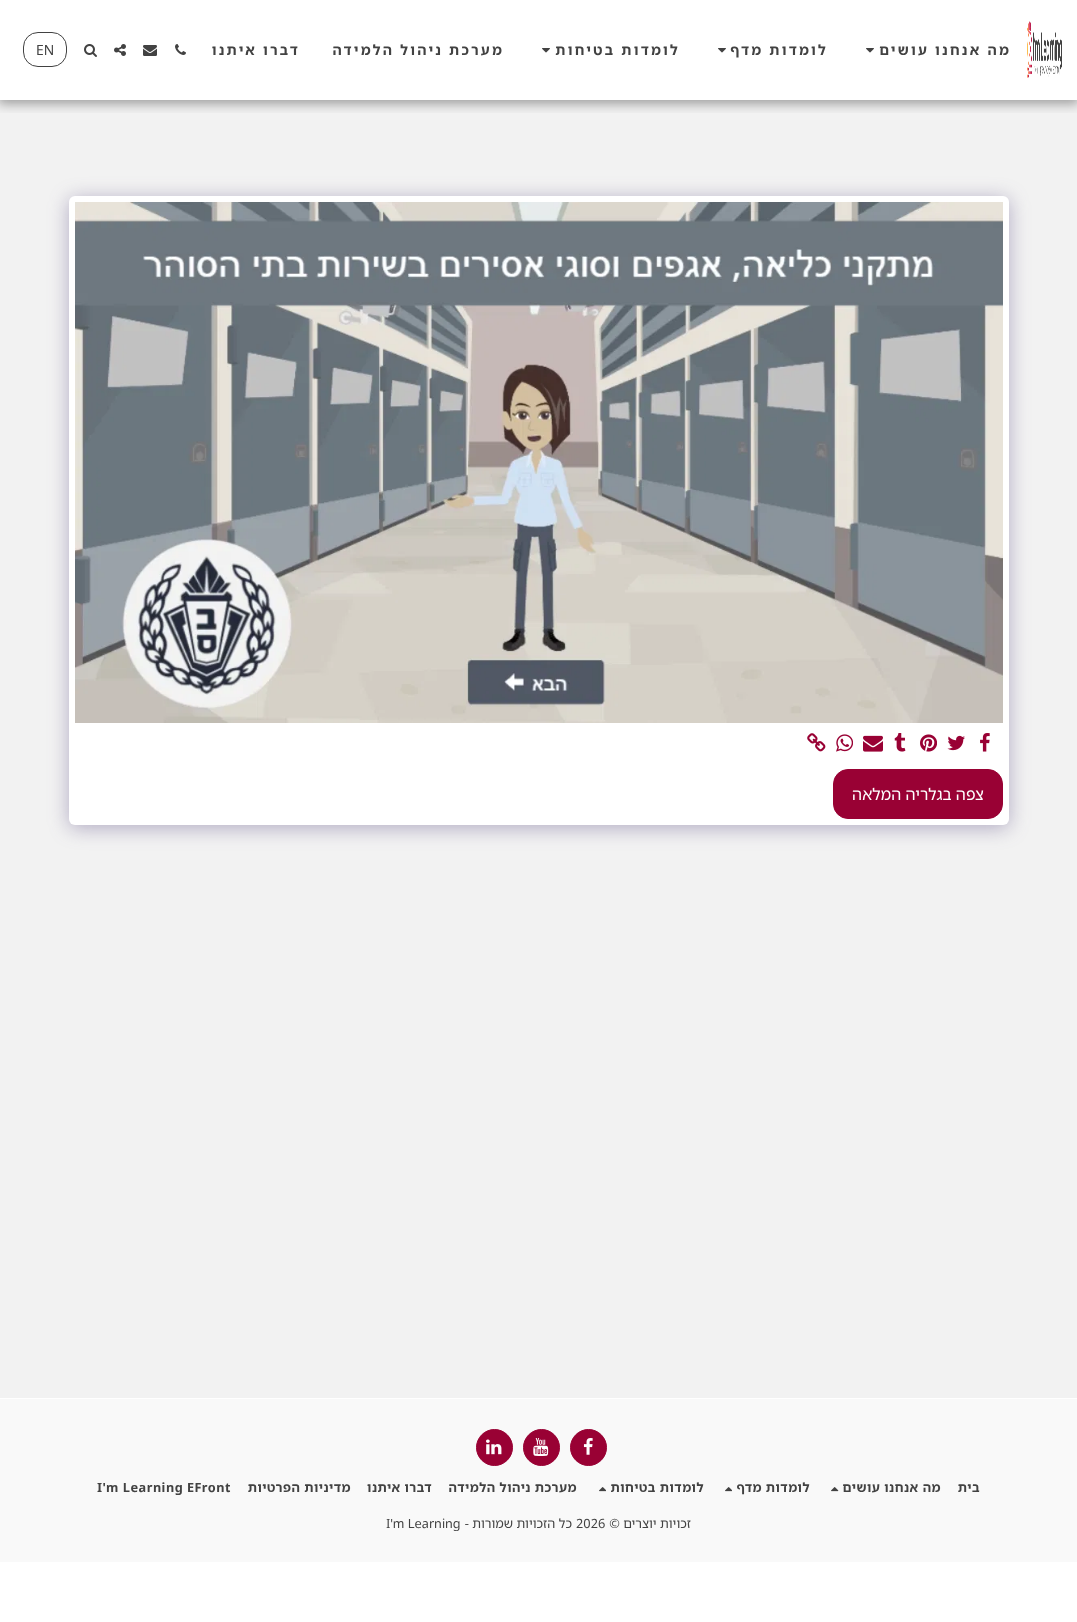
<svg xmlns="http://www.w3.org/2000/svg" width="1077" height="1622">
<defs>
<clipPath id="clip1"><rect x="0" y="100" width="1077" height="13"/></clipPath>
</defs>
<rect width="100%" height="100%" fill="#fff"/>
<rect y="100" width="1077" height="1298" fill="#f2f2f2"/>
<g clip-path="url(#clip1)">
<rect x="-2" width="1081" height="104" fill="#00000059" filter="blur(6px)"/>
</g>
<image x="1027" y="21" width="35" height="57" href="media/1.png"/>
<text x="1011" y="55" style="font-family:Noto Sans Hebrew;font-size:14px;font-weight:bold;letter-spacing:2.25px;direction:rtl;fill:#424242">מה אנחנו עושים</text>
<image x="866" y="48" width="8" height="5" href="media/2.png"/>
<text x="828" y="55" style="font-family:Noto Sans Hebrew;font-size:14px;font-weight:bold;letter-spacing:2.25px;direction:rtl;fill:#424242">לומדות מדף</text>
<image x="718" y="48" width="8" height="5" href="media/2.png"/>
<text x="680" y="55" style="font-family:Noto Sans Hebrew;font-size:14px;font-weight:bold;letter-spacing:2.25px;direction:rtl;fill:#424242">לומדות בטיחות</text>
<image x="542" y="48" width="8" height="5" href="media/2.png"/>
<text x="504" y="55" style="font-family:Noto Sans Hebrew;font-size:14px;font-weight:bold;letter-spacing:2.25px;direction:rtl;fill:#424242">מערכת ניהול הלמידה</text>
<text x="300" y="55" style="font-family:Noto Sans Hebrew;font-size:14px;font-weight:bold;letter-spacing:2.25px;direction:rtl;fill:#424242">דברו איתנו</text>
<image x="175" y="44" width="11" height="11" href="media/3.png"/>
<image x="143" y="45" width="14" height="11" href="media/4.png"/>
<image x="114" y="44" width="12" height="12" href="media/5.png"/>
<image x="84" y="44" width="13" height="13" href="media/6.png"/>
<rect x="23.5" y="32.5" width="43" height="34" rx="14.5" fill="none" stroke="#424242"/>
<text x="36" y="55" style="font-family:Noto Sans Hebrew;font-size:14px;fill:#424242">EN</text>
<rect x="69" y="199" width="940" height="629" rx="6" fill="#4d3f7a66" filter="blur(10px)"/>
<rect x="69" y="196" width="940" height="629" rx="6" fill="#fff"/>
<image x="75" y="202" width="928" height="521" href="media/7.png"/>
<image x="980" y="733" width="10" height="19" href="media/8.png"/>
<image x="947" y="735" width="18" height="16" href="media/9.png"/>
<image x="920" y="734" width="17" height="18" href="media/10.png"/>
<image x="894" y="733" width="12" height="19" href="media/11.png"/>
<image x="863" y="735" width="20" height="17" href="media/12.png"/>
<image x="836" y="734" width="17" height="18" href="media/13.png"/>
<image x="807" y="733" width="19" height="19" href="media/14.png"/>
<rect x="833.5" y="769.5" width="169" height="49" rx="14.5" fill="#990134" stroke="#990134"/>
<text x="984" y="800" style="font-family:Noto Sans Hebrew;font-size:16px;direction:rtl;fill:#fff">צפה בגלריה המלאה</text>
<rect y="1399" width="1077" height="163" fill="#f9f9f9"/>
<circle cx="588.5" cy="1447.5" r="18" fill="#990134" stroke="#990134"/>
<image x="583" y="1438" width="10" height="17" href="media/15.png"/>
<circle cx="541.5" cy="1447.5" r="18" fill="#990134" stroke="#990134"/>
<image x="533" y="1438" width="16" height="18" href="media/16.png"/>
<circle cx="494.5" cy="1447.5" r="18" fill="#990134" stroke="#990134"/>
<image x="486" y="1439" width="16" height="16" href="media/17.png"/>
<text x="980" y="1492" style="font-family:Noto Sans Hebrew;font-size:12.75px;font-weight:bold;letter-spacing:0.5px;direction:rtl;fill:#424242">בית</text>
<text x="941" y="1492" style="font-family:Noto Sans Hebrew;font-size:12.75px;font-weight:bold;letter-spacing:0.5px;direction:rtl;fill:#424242">מה אנחנו עושים</text>
<image x="831" y="1487" width="8" height="5" href="media/18.png"/>
<text x="810" y="1492" style="font-family:Noto Sans Hebrew;font-size:12.75px;font-weight:bold;letter-spacing:0.5px;direction:rtl;fill:#424242">לומדות מדף</text>
<image x="725" y="1487" width="7" height="5" href="media/19.png"/>
<text x="704" y="1492" style="font-family:Noto Sans Hebrew;font-size:12.75px;font-weight:bold;letter-spacing:0.5px;direction:rtl;fill:#424242">לומדות בטיחות</text>
<image x="599" y="1487" width="7" height="5" href="media/19.png"/>
<text x="577" y="1492" style="font-family:Noto Sans Hebrew;font-size:12.75px;font-weight:bold;letter-spacing:0.5px;direction:rtl;fill:#424242">מערכת ניהול הלמידה</text>
<text x="432" y="1492" style="font-family:Noto Sans Hebrew;font-size:12.75px;font-weight:bold;letter-spacing:0.5px;direction:rtl;fill:#424242">דברו איתנו</text>
<text x="351" y="1492" style="font-family:Noto Sans Hebrew;font-size:12.75px;font-weight:bold;letter-spacing:0.5px;direction:rtl;fill:#424242">מדיניות הפרטיות</text>
<text x="97" y="1492" style="font-family:Noto Sans Hebrew;font-size:12.75px;font-weight:bold;letter-spacing:0.5px;fill:#424242">I'm Learning EFront</text>
<text x="691" y="1528" style="font-family:Noto Sans Hebrew;font-size:12.75px;direction:rtl;fill:#424242">זכויות יוצרים ©</text>
<text x="576" y="1528" style="font-family:Noto Sans Hebrew;font-size:12.75px;fill:#424242">2026</text>
<text x="572" y="1528" style="font-family:Noto Sans Hebrew;font-size:12.75px;direction:rtl;fill:#424242">כל הזכויות שמורות -</text>
<text x="386" y="1528" style="font-family:Noto Sans Hebrew;font-size:12.75px;fill:#424242">I'm Learning</text>
</svg>
